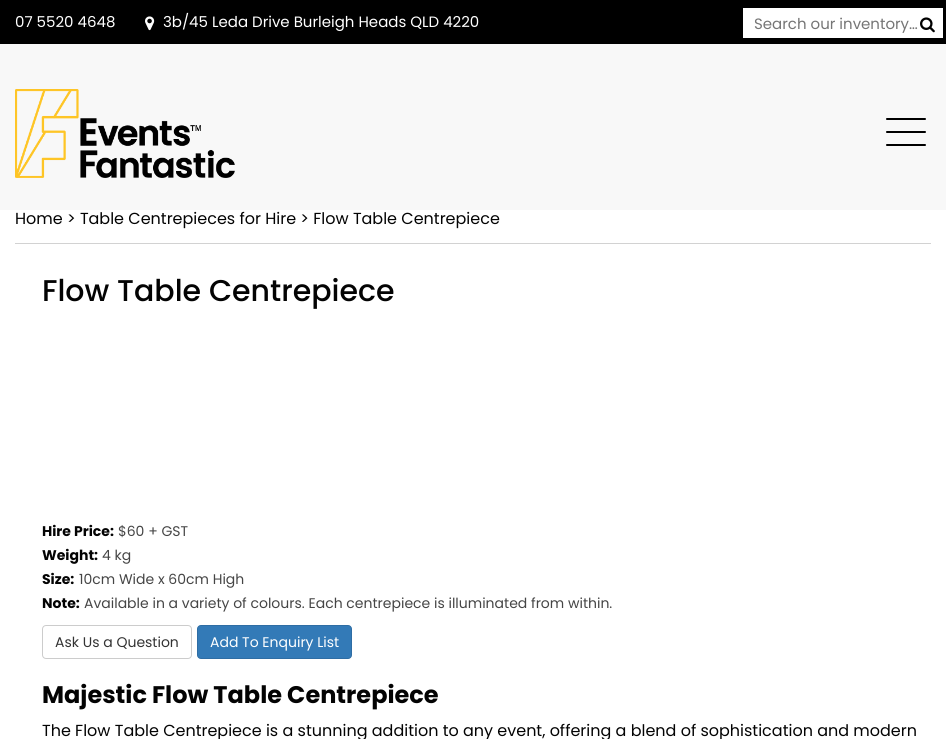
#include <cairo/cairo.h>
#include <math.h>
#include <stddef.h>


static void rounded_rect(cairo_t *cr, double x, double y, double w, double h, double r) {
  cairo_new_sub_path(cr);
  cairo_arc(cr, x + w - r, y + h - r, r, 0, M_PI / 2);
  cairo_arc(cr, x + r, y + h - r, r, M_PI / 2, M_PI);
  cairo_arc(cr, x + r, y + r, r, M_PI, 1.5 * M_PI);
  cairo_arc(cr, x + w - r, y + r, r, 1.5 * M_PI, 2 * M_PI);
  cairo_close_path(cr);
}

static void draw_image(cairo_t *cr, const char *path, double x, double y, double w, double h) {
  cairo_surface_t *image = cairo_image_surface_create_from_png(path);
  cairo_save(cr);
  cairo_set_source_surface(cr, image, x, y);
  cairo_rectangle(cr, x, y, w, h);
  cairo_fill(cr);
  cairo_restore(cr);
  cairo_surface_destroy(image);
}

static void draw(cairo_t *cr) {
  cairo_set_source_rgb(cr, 1, 1, 1);
  cairo_paint(cr);
  cairo_set_source_rgb(cr, 0, 0, 0);
  cairo_rectangle(cr, 0, 0, 946, 44);
  cairo_fill(cr);
  draw_image(cr, "images/1.png", 145, 16, 10, 15);
  cairo_set_source_rgb(cr, 1, 1, 1);
  cairo_rectangle(cr, 743, 8, 200, 30);
  cairo_fill(cr);
  draw_image(cr, "images/2.png", 920, 17, 15, 16);
  cairo_set_source_rgb(cr, 248 / 255.0, 248 / 255.0, 248 / 255.0);
  cairo_rectangle(cr, 0, 44, 946, 166);
  cairo_fill(cr);
  draw_image(cr, "images/3.png", 15, 89, 220, 89);
  cairo_set_source_rgb(cr, 0, 0, 0);
  rounded_rect(cr, 886, 118, 40, 2, 1);
  cairo_fill(cr);
  rounded_rect(cr, 886, 131, 40, 2, 1);
  cairo_fill(cr);
  rounded_rect(cr, 886, 144, 40, 2, 1);
  cairo_fill(cr);
  cairo_set_source_rgb(cr, 210 / 255.0, 210 / 255.0, 210 / 255.0);
  cairo_rectangle(cr, 15, 243, 916, 1);
  cairo_fill(cr);
  rounded_rect(cr, 42.5, 625.5, 149, 33, 3.5);
  cairo_set_source_rgb(cr, 204 / 255.0, 204 / 255.0, 204 / 255.0);
  cairo_set_line_width(cr, 1);
  cairo_stroke(cr);
  cairo_set_source_rgb(cr, 51 / 255.0, 122 / 255.0, 183 / 255.0);
  rounded_rect(cr, 197.5, 625.5, 154, 33, 3.5);
  cairo_fill_preserve(cr);
  cairo_set_source_rgb(cr, 46 / 255.0, 109 / 255.0, 164 / 255.0);
  cairo_stroke(cr);
  cairo_select_font_face(cr, "Poppins", CAIRO_FONT_SLANT_NORMAL, CAIRO_FONT_WEIGHT_NORMAL);
  cairo_set_font_size(cr, 15);
  cairo_set_source_rgb(cr, 1, 1, 1);
  cairo_move_to(cr, 15, 27);
  cairo_show_text(cr, "07 5520 4648");
  cairo_move_to(cr, 163, 27);
  cairo_show_text(cr, "3b/45 Leda Drive Burleigh Heads QLD 4220");
  cairo_set_source_rgb(cr, 117 / 255.0, 117 / 255.0, 117 / 255.0);
  cairo_move_to(cr, 754, 29);
  cairo_show_text(cr, "Search our inventory…");
  cairo_set_font_size(cr, 16);
  cairo_set_source_rgb(cr, 3 / 255.0, 3 / 255.0, 3 / 255.0);
  cairo_move_to(cr, 15, 224);
  cairo_show_text(cr, "Home > Table Centrepieces for Hire > Flow Table Centrepiece");
  cairo_select_font_face(cr, "Poppins Medium", CAIRO_FONT_SLANT_NORMAL, CAIRO_FONT_WEIGHT_NORMAL);
  cairo_set_font_size(cr, 30);
  cairo_move_to(cr, 42, 301);
  cairo_show_text(cr, "Flow Table Centrepiece");
  cairo_select_font_face(cr, "Poppins", CAIRO_FONT_SLANT_NORMAL, CAIRO_FONT_WEIGHT_BOLD);
  cairo_set_font_size(cr, 14);
  cairo_move_to(cr, 42, 536);
  cairo_show_text(cr, "Hire Price:");
  cairo_select_font_face(cr, "Poppins", CAIRO_FONT_SLANT_NORMAL, CAIRO_FONT_WEIGHT_NORMAL);
  cairo_set_source_rgb(cr, 69 / 255.0, 69 / 255.0, 69 / 255.0);
  cairo_move_to(cr, 118, 536);
  cairo_show_text(cr, "$60 + GST");
  cairo_select_font_face(cr, "Poppins", CAIRO_FONT_SLANT_NORMAL, CAIRO_FONT_WEIGHT_BOLD);
  cairo_set_source_rgb(cr, 3 / 255.0, 3 / 255.0, 3 / 255.0);
  cairo_move_to(cr, 42, 560);
  cairo_show_text(cr, "Weight:");
  cairo_select_font_face(cr, "Poppins", CAIRO_FONT_SLANT_NORMAL, CAIRO_FONT_WEIGHT_NORMAL);
  cairo_set_source_rgb(cr, 69 / 255.0, 69 / 255.0, 69 / 255.0);
  cairo_move_to(cr, 102, 560);
  cairo_show_text(cr, "4 kg");
  cairo_select_font_face(cr, "Poppins", CAIRO_FONT_SLANT_NORMAL, CAIRO_FONT_WEIGHT_BOLD);
  cairo_set_source_rgb(cr, 3 / 255.0, 3 / 255.0, 3 / 255.0);
  cairo_move_to(cr, 42, 584);
  cairo_show_text(cr, "Size:");
  cairo_select_font_face(cr, "Poppins", CAIRO_FONT_SLANT_NORMAL, CAIRO_FONT_WEIGHT_NORMAL);
  cairo_set_source_rgb(cr, 69 / 255.0, 69 / 255.0, 69 / 255.0);
  cairo_move_to(cr, 79, 584);
  cairo_show_text(cr, "10cm Wide x 60cm High");
  cairo_select_font_face(cr, "Poppins", CAIRO_FONT_SLANT_NORMAL, CAIRO_FONT_WEIGHT_BOLD);
  cairo_set_source_rgb(cr, 3 / 255.0, 3 / 255.0, 3 / 255.0);
  cairo_move_to(cr, 42, 608);
  cairo_show_text(cr, "Note:");
  cairo_select_font_face(cr, "Poppins", CAIRO_FONT_SLANT_NORMAL, CAIRO_FONT_WEIGHT_NORMAL);
  cairo_set_source_rgb(cr, 69 / 255.0, 69 / 255.0, 69 / 255.0);
  cairo_move_to(cr, 84, 608);
  cairo_show_text(cr, "Available in a variety of colours. Each centrepiece is illuminated from within.");
  cairo_set_source_rgb(cr, 51 / 255.0, 51 / 255.0, 51 / 255.0);
  cairo_move_to(cr, 55, 647);
  cairo_show_text(cr, "Ask Us a Question");
  cairo_set_source_rgb(cr, 1, 1, 1);
  cairo_move_to(cr, 210, 647);
  cairo_show_text(cr, "Add To Enquiry List");
  cairo_select_font_face(cr, "Poppins", CAIRO_FONT_SLANT_NORMAL, CAIRO_FONT_WEIGHT_BOLD);
  cairo_set_font_size(cr, 24);
  cairo_set_source_rgb(cr, 3 / 255.0, 3 / 255.0, 3 / 255.0);
  cairo_move_to(cr, 42, 703);
  cairo_show_text(cr, "Majestic Flow Table Centrepiece");
  cairo_select_font_face(cr, "Poppins", CAIRO_FONT_SLANT_NORMAL, CAIRO_FONT_WEIGHT_NORMAL);
  cairo_set_font_size(cr, 16);
  cairo_move_to(cr, 42, 736);
  cairo_show_text(cr, "The Flow Table Centrepiece is a stunning addition to any event, offering a blend of sophistication and modern");
}

int main(void) {
  cairo_surface_t *surface = cairo_image_surface_create(CAIRO_FORMAT_RGB24, 946, 739);
  cairo_t *cr = cairo_create(surface);
  cairo_font_options_t *options = cairo_font_options_create();
  cairo_font_options_set_hint_metrics(options, CAIRO_HINT_METRICS_OFF);
  cairo_font_options_set_hint_style(options, CAIRO_HINT_STYLE_NONE);
  cairo_set_font_options(cr, options);
  cairo_set_miter_limit(cr, 4);
  draw(cr);
  cairo_surface_write_to_png(surface, "out.png");
  cairo_font_options_destroy(options);
  cairo_destroy(cr);
  cairo_surface_destroy(surface);
  return 0;
}
